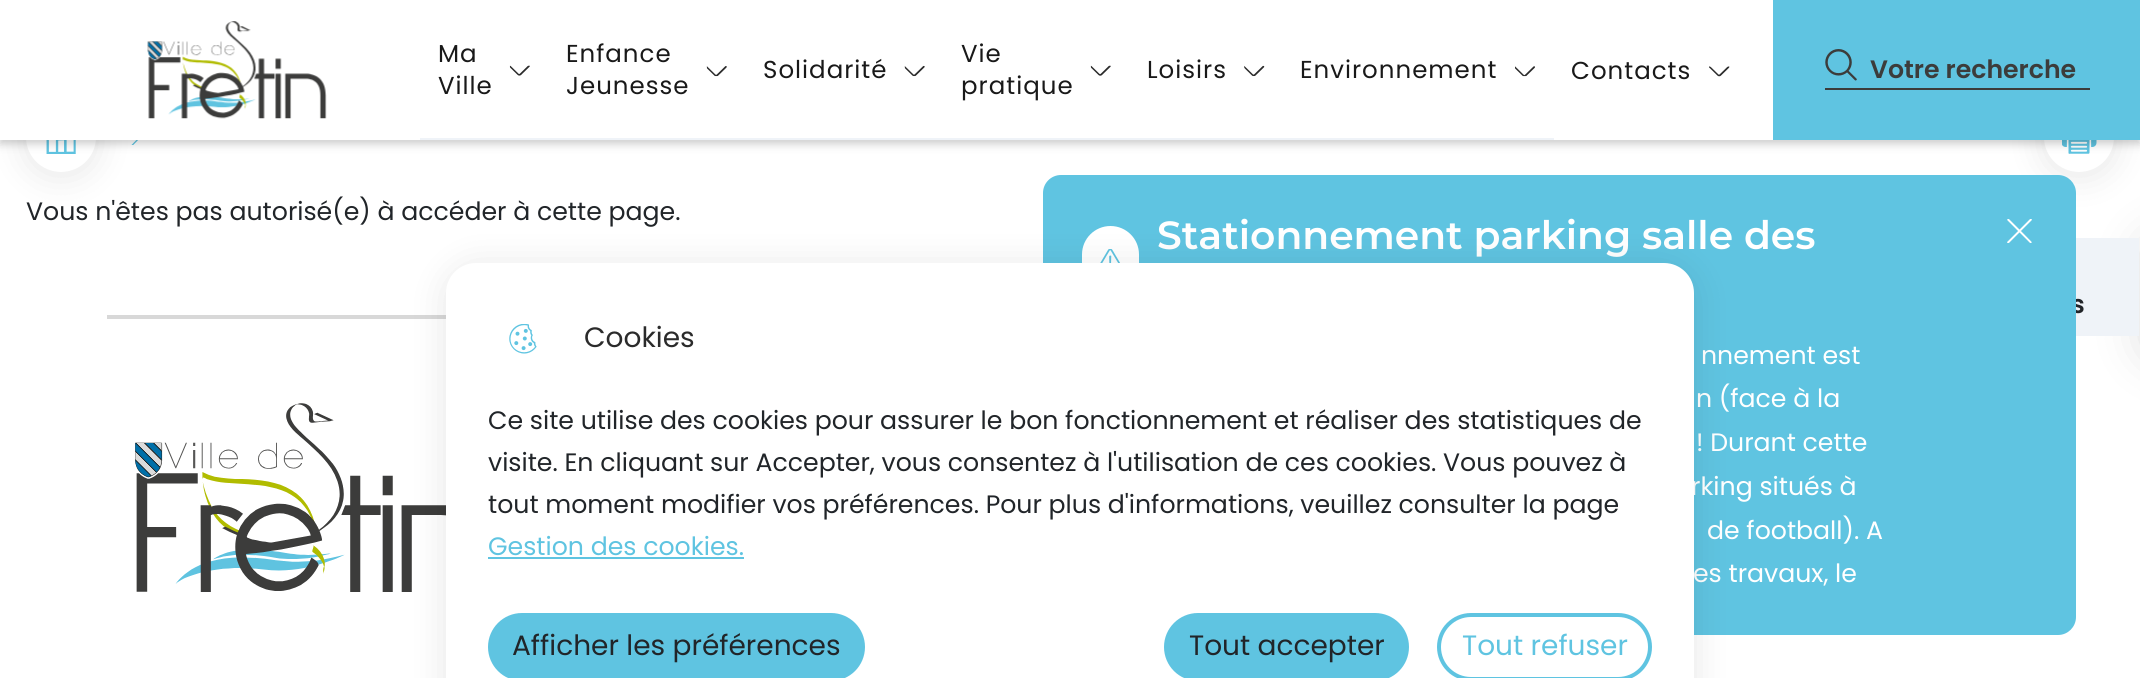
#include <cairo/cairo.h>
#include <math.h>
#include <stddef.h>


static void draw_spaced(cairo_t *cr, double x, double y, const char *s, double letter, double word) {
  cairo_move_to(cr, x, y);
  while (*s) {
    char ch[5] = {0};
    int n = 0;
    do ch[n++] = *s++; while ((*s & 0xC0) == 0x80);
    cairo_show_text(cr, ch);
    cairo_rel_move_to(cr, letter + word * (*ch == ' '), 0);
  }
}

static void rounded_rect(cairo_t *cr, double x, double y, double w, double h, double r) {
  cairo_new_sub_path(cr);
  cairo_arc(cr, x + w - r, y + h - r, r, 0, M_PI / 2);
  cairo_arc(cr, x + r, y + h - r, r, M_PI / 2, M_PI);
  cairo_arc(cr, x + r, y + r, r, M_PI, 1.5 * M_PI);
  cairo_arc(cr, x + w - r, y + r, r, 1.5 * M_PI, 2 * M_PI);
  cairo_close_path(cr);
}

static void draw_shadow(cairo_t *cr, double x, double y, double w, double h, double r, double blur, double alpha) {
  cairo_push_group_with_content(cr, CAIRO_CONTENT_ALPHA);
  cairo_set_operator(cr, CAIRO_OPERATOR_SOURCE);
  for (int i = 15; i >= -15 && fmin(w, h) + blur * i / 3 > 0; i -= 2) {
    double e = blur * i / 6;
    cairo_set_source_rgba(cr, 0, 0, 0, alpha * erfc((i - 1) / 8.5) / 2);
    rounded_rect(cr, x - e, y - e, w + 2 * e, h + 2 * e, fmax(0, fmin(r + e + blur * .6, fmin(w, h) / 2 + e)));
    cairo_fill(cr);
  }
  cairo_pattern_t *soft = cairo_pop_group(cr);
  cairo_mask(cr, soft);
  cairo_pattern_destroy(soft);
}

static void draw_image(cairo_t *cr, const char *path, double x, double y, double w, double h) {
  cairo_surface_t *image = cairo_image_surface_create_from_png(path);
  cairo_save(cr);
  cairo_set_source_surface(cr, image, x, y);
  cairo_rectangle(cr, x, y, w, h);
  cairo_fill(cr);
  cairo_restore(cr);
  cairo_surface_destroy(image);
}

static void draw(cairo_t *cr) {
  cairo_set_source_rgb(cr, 1, 1, 1);
  cairo_paint(cr);
  draw_image(cr, "images/11.png", 131, 140, 7, 5);
  cairo_set_source_rgb(cr, 0, 0, 0);
  draw_shadow(cr, 26, 105, 70, 70, 35, 17.5, 0.1);
  cairo_set_source_rgb(cr, 1, 1, 1);
  cairo_arc(cr, 61, 137, 35, 0, 2 * M_PI);
  cairo_fill(cr);
  draw_image(cr, "images/10.png", 46, 140, 30, 14);
  cairo_set_source_rgb(cr, 0, 0, 0);
  draw_shadow(cr, 2044, 105, 70, 70, 35, 17.5, 0.1);
  cairo_set_source_rgb(cr, 1, 1, 1);
  cairo_arc(cr, 2079, 137, 35, 0, 2 * M_PI);
  cairo_fill(cr);
  draw_image(cr, "images/12.png", 2062, 140, 35, 14);
  cairo_set_source_rgb(cr, 0, 0, 0);
  draw_shadow(cr, 0, 4, 2140, 140, 0, 4.5, 0.2);
  cairo_set_source_rgb(cr, 1, 1, 1);
  cairo_rectangle(cr, 0, 0, 1773, 140);
  cairo_fill(cr);
  draw_image(cr, "images/1.png", 147, 21, 180, 98);
  cairo_set_source_rgb(cr, 239 / 255.0, 243 / 255.0, 248 / 255.0);
  cairo_rectangle(cr, 420, 138, 1134, 2);
  cairo_fill(cr);
  draw_image(cr, "images/2.png", 509, 65, 21, 11);
  draw_image(cr, "images/3.png", 706, 66, 21, 11);
  draw_image(cr, "images/4.png", 904, 65, 21, 12);
  draw_image(cr, "images/5.png", 1090, 65, 21, 11);
  draw_image(cr, "images/6.png", 1244, 65, 21, 12);
  draw_image(cr, "images/7.png", 1515, 66, 20, 11);
  draw_image(cr, "images/8.png", 1709, 66, 21, 11);
  cairo_set_source_rgb(cr, 95 / 255.0, 196 / 255.0, 225 / 255.0);
  cairo_rectangle(cr, 1773, 0, 367, 140);
  cairo_fill(cr);
  draw_image(cr, "images/9.png", 1825, 49, 32, 32);
  cairo_set_source_rgb(cr, 60 / 255.0, 60 / 255.0, 59 / 255.0);
  cairo_rectangle(cr, 1825, 88, 265, 2);
  cairo_fill(cr);
  cairo_set_source_rgb(cr, 17 / 255.0, 17 / 255.0, 17 / 255.0);
  draw_shadow(cr, 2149, 242, 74, 112, 9, 24.5, 0.2);
  cairo_set_source_rgb(cr, 239 / 255.0, 243 / 255.0, 248 / 255.0);
  cairo_rectangle(cr, 2076, 238, 63, 98);
  cairo_fill(cr);
  cairo_set_source_rgb(cr, 216 / 255.0, 216 / 255.0, 216 / 255.0);
  cairo_rectangle(cr, 107, 315, 339, 4);
  cairo_fill(cr);
  draw_image(cr, "images/13.png", 135, 403, 311, 189);
  cairo_select_font_face(cr, "Poppins", CAIRO_FONT_SLANT_NORMAL, CAIRO_FONT_WEIGHT_NORMAL);
  cairo_set_font_size(cr, 24.5);
  cairo_set_source_rgb(cr, 25 / 255.0, 25 / 255.0, 25 / 255.0);
  draw_spaced(cr, 438, 62, "Ma", 1, 0);
  draw_spaced(cr, 438, 94, "Ville", 1, 0);
  draw_spaced(cr, 566, 62, "Enfance", 1, 0);
  draw_spaced(cr, 566, 94, "Jeunesse", 1, 0);
  draw_spaced(cr, 763, 78, "Solidarité", 1, 0);
  draw_spaced(cr, 961, 62, "Vie", 1, 0);
  draw_spaced(cr, 961, 94, "pratique", 1, 0);
  draw_spaced(cr, 1147, 78, "Loisirs", 1, 0);
  draw_spaced(cr, 1300, 78, "Environnement", 1, 0);
  draw_spaced(cr, 1571, 79, "Contacts", 1, 0);
  cairo_select_font_face(cr, "Poppins SemiBold", CAIRO_FONT_SLANT_NORMAL, CAIRO_FONT_WEIGHT_NORMAL);
  cairo_set_font_size(cr, 25.2);
  cairo_set_source_rgb(cr, 60 / 255.0, 60 / 255.0, 59 / 255.0);
  cairo_move_to(cr, 1870, 78);
  cairo_show_text(cr, "Votre recherche");
  cairo_select_font_face(cr, "Poppins", CAIRO_FONT_SLANT_NORMAL, CAIRO_FONT_WEIGHT_NORMAL);
  cairo_set_source_rgb(cr, 33 / 255.0, 37 / 255.0, 41 / 255.0);
  cairo_move_to(cr, 26, 220);
  cairo_show_text(cr, "Vous n'êtes pas autorisé(e) à accéder à cette page.");
  cairo_select_font_face(cr, "Poppins SemiBold", CAIRO_FONT_SLANT_NORMAL, CAIRO_FONT_WEIGHT_NORMAL);
  cairo_move_to(cr, 2071, 313);
  cairo_show_text(cr, "s");
  cairo_set_source_rgb(cr, 95 / 255.0, 196 / 255.0, 225 / 255.0);
  rounded_rect(cr, 1045, 177, 1029, 456, 16);
  cairo_fill_preserve(cr);
  cairo_set_line_width(cr, 4);
  cairo_stroke(cr);
  cairo_set_source_rgb(cr, 1, 1, 1);
  rounded_rect(cr, 1082, 226, 57, 70, 28.5);
  cairo_fill(cr);
  draw_image(cr, "images/14.png", 1100, 249, 20, 14);
  cairo_select_font_face(cr, "Montserrat SemiBold", CAIRO_FONT_SLANT_NORMAL, CAIRO_FONT_WEIGHT_NORMAL);
  cairo_set_font_size(cr, 39.25);
  cairo_move_to(cr, 1157, 249);
  cairo_show_text(cr, "Stationnement parking salle des");
  cairo_select_font_face(cr, "Poppins", CAIRO_FONT_SLANT_NORMAL, CAIRO_FONT_WEIGHT_NORMAL);
  cairo_set_font_size(cr, 25.2);
  cairo_move_to(cr, 1701, 364);
  cairo_show_text(cr, "nnement est");
  cairo_move_to(cr, 1696, 407);
  cairo_show_text(cr, "n (face à la");
  cairo_move_to(cr, 1696, 451);
  cairo_show_text(cr, "! Durant cette");
  cairo_move_to(cr, 1691, 495);
  cairo_show_text(cr, "rking situés à");
  cairo_move_to(cr, 1707, 539);
  cairo_show_text(cr, "de football).");
  cairo_move_to(cr, 1866, 539);
  cairo_show_text(cr, "A");
  cairo_move_to(cr, 1693, 582);
  cairo_show_text(cr, "es travaux, le");
  draw_image(cr, "images/15.png", 2007, 219, 25, 24);
  cairo_set_source_rgb(cr, 0, 0, 0);
  draw_shadow(cr, 446, 266, 1248, 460, 30, 17.5, 0.1);
  cairo_set_source_rgb(cr, 1, 1, 1);
  rounded_rect(cr, 446, 263, 1248, 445, 30);
  cairo_fill(cr);
  draw_image(cr, "images/16.png", 509, 324, 28, 30);
  cairo_set_font_size(cr, 28);
  cairo_set_source_rgb(cr, 43 / 255.0, 43 / 255.0, 43 / 255.0);
  cairo_move_to(cr, 584, 347);
  cairo_show_text(cr, "Cookies");
  cairo_set_font_size(cr, 25.2);
  cairo_set_source_rgb(cr, 33 / 255.0, 37 / 255.0, 41 / 255.0);
  cairo_move_to(cr, 488, 429);
  cairo_show_text(cr, "Ce site utilise des cookies pour assurer le bon fonctionnement et réaliser des statistiques de");
  cairo_move_to(cr, 488, 471);
  cairo_show_text(cr, "visite. En cliquant sur Accepter, vous consentez à l'utilisation de ces cookies. Vous pouvez à");
  cairo_move_to(cr, 488, 513);
  cairo_show_text(cr, "tout moment modifier vos préférences. Pour plus d'informations, veuillez consulter la page");
  cairo_set_source_rgb(cr, 95 / 255.0, 196 / 255.0, 225 / 255.0);
  cairo_move_to(cr, 488, 555);
  cairo_show_text(cr, "Gestion des cookies.");
  cairo_rectangle(cr, 488, 557, 256, 2);
  cairo_fill(cr);
  rounded_rect(cr, 490, 615, 373, 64, 32);
  cairo_fill_preserve(cr);
  cairo_stroke(cr);
  cairo_set_font_size(cr, 28);
  cairo_set_source_rgb(cr, 33 / 255.0, 37 / 255.0, 41 / 255.0);
  cairo_move_to(cr, 512, 655);
  cairo_show_text(cr, "Afficher les préférences");
  cairo_set_source_rgb(cr, 95 / 255.0, 196 / 255.0, 225 / 255.0);
  rounded_rect(cr, 1166, 615, 241, 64, 32);
  cairo_fill_preserve(cr);
  cairo_stroke(cr);
  cairo_set_source_rgb(cr, 33 / 255.0, 37 / 255.0, 41 / 255.0);
  cairo_move_to(cr, 1189, 655);
  cairo_show_text(cr, "Tout accepter");
  rounded_rect(cr, 1439, 615, 211, 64, 32);
  cairo_set_source_rgb(cr, 95 / 255.0, 196 / 255.0, 225 / 255.0);
  cairo_stroke(cr);
  cairo_move_to(cr, 1462, 655);
  cairo_show_text(cr, "Tout refuser");
}

int main(void) {
  cairo_surface_t *surface = cairo_image_surface_create(CAIRO_FORMAT_RGB24, 2140, 678);
  cairo_t *cr = cairo_create(surface);
  cairo_font_options_t *options = cairo_font_options_create();
  cairo_font_options_set_hint_metrics(options, CAIRO_HINT_METRICS_OFF);
  cairo_font_options_set_hint_style(options, CAIRO_HINT_STYLE_NONE);
  cairo_set_font_options(cr, options);
  cairo_set_miter_limit(cr, 4);
  draw(cr);
  cairo_surface_write_to_png(surface, "out.png");
  cairo_font_options_destroy(options);
  cairo_destroy(cr);
  cairo_surface_destroy(surface);
  return 0;
}
